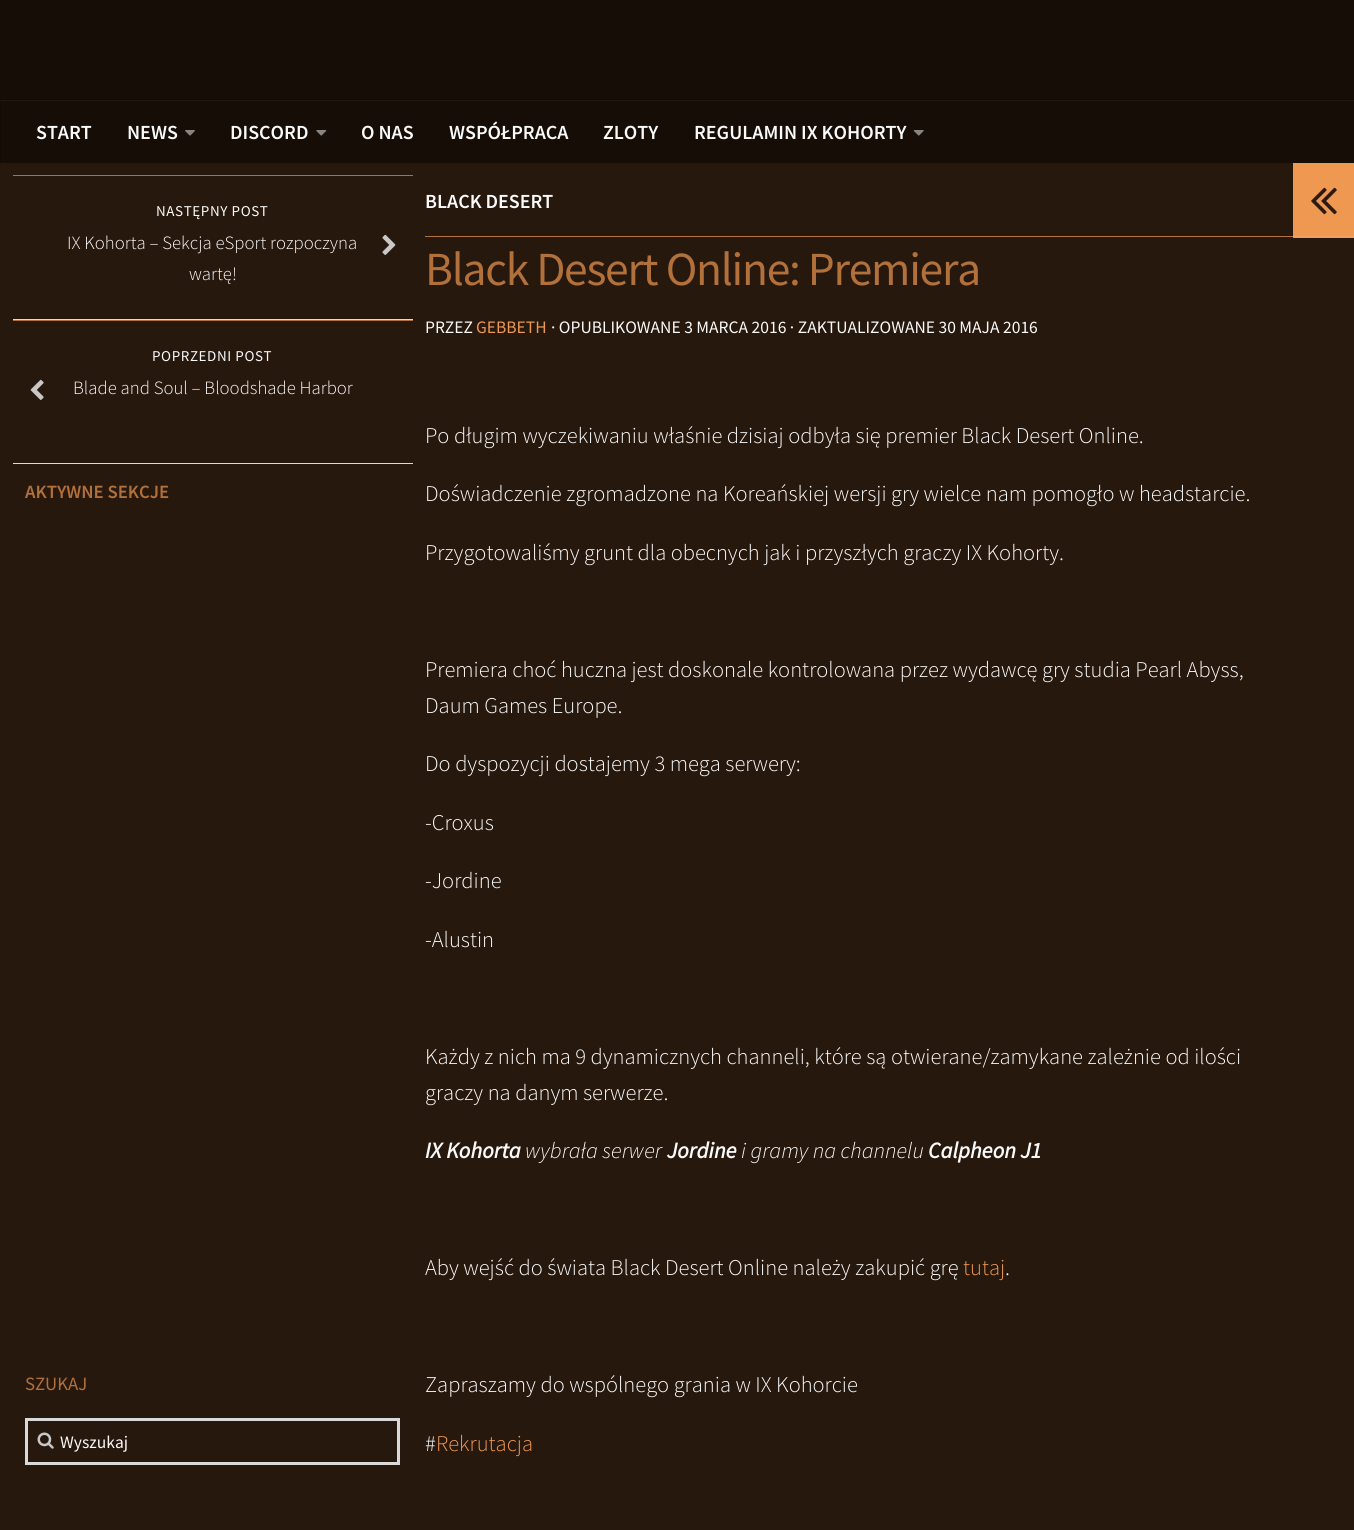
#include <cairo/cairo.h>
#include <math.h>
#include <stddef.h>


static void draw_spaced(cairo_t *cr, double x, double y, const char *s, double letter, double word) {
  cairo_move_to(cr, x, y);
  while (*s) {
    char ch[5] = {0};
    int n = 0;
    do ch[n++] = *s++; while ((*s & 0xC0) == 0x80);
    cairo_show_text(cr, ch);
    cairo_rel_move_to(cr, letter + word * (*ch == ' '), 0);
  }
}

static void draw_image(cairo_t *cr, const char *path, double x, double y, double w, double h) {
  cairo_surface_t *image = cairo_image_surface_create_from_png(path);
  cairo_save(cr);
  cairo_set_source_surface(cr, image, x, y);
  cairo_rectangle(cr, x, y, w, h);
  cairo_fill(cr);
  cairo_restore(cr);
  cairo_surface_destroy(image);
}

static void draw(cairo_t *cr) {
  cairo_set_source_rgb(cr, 21 / 255.0, 13 / 255.0, 6 / 255.0);
  cairo_paint(cr);
  cairo_set_source_rgb(cr, 32 / 255.0, 25 / 255.0, 18 / 255.0);
  cairo_rectangle(cr, 0, 100, 1354, 1);
  cairo_fill(cr);
  cairo_set_source_rgb(cr, 17 / 255.0, 10 / 255.0, 5 / 255.0);
  cairo_rectangle(cr, 0, 99, 1354, 1);
  cairo_fill(cr);
  cairo_rectangle(cr, 0, 100, 1, 63);
  cairo_fill(cr);
  cairo_set_source_rgb(cr, 29 / 255.0, 22 / 255.0, 17 / 255.0);
  cairo_rectangle(cr, 0, 100, 1, 1);
  cairo_fill(cr);
  draw_image(cr, "images/1.png", 185, 130, 10, 6);
  draw_image(cr, "images/2.png", 316, 130, 11, 6);
  draw_image(cr, "images/3.png", 913, 130, 11, 6);
  cairo_set_source_rgb(cr, 39 / 255.0, 24 / 255.0, 14 / 255.0);
  cairo_rectangle(cr, 0, 163, 1354, 1367);
  cairo_fill(cr);
  cairo_set_source_rgb(cr, 178 / 255.0, 112 / 255.0, 58 / 255.0);
  cairo_rectangle(cr, 13, 175, 400, 1);
  cairo_fill(cr);
  cairo_set_source_rgb(cr, 217 / 255.0, 217 / 255.0, 217 / 255.0);
  cairo_rectangle(cr, 13, 319, 400, 1);
  cairo_fill(cr);
  draw_image(cr, "images/4.png", 382, 234, 14, 21);
  cairo_set_source_rgb(cr, 178 / 255.0, 112 / 255.0, 58 / 255.0);
  cairo_rectangle(cr, 13, 320, 400, 1);
  cairo_fill(cr);
  cairo_set_source_rgb(cr, 217 / 255.0, 217 / 255.0, 217 / 255.0);
  cairo_rectangle(cr, 13, 463, 400, 1);
  cairo_fill(cr);
  draw_image(cr, "images/5.png", 30, 379, 14, 21);
  cairo_rectangle(cr, 26.5, 1419.5, 372, 44);
  cairo_set_line_width(cr, 3);
  cairo_stroke(cr);
  draw_image(cr, "images/6.png", 37, 1432, 17, 17);
  cairo_set_source_rgb(cr, 178 / 255.0, 112 / 255.0, 58 / 255.0);
  cairo_rectangle(cr, 425, 236, 868, 1);
  cairo_fill(cr);
  cairo_set_source_rgb(cr, 238 / 255.0, 152 / 255.0, 81 / 255.0);
  cairo_rectangle(cr, 1293, 163, 61, 75);
  cairo_fill(cr);
  cairo_set_source_rgb(cr, 239 / 255.0, 162 / 255.0, 98 / 255.0);
  cairo_rectangle(cr, 1293, 236, 61, 1);
  cairo_fill(cr);
  draw_image(cr, "images/7.png", 1311, 187, 26, 28);
  cairo_select_font_face(cr, "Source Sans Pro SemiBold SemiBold", CAIRO_FONT_SLANT_NORMAL, CAIRO_FONT_WEIGHT_NORMAL);
  cairo_set_font_size(cr, 20);
  cairo_set_source_rgb(cr, 250 / 255.0, 250 / 255.0, 250 / 255.0);
  cairo_move_to(cr, 36, 139);
  cairo_show_text(cr, "START");
  cairo_move_to(cr, 127, 139);
  cairo_show_text(cr, "NEWS");
  cairo_move_to(cr, 230, 139);
  cairo_show_text(cr, "DISCORD");
  cairo_move_to(cr, 361, 139);
  cairo_show_text(cr, "O NAS");
  cairo_move_to(cr, 449, 139);
  cairo_show_text(cr, "WSPÓŁPRACA");
  cairo_move_to(cr, 603, 139);
  cairo_show_text(cr, "ZLOTY");
  cairo_move_to(cr, 694, 139);
  cairo_show_text(cr, "REGULAMIN IX KOHORTY");
  cairo_select_font_face(cr, "Source Sans Pro", CAIRO_FONT_SLANT_NORMAL, CAIRO_FONT_WEIGHT_NORMAL);
  cairo_set_font_size(cr, 15);
  draw_spaced(cr, 156, 216, "NASTĘPNY POST", 0.6, 0);
  cairo_select_font_face(cr, "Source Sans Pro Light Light", CAIRO_FONT_SLANT_NORMAL, CAIRO_FONT_WEIGHT_NORMAL);
  cairo_set_font_size(cr, 18.75);
  cairo_move_to(cr, 67, 249);
  cairo_show_text(cr, "IX Kohorta – Sekcja eSport rozpoczyna");
  cairo_move_to(cr, 189, 280);
  cairo_show_text(cr, "wartę!");
  cairo_select_font_face(cr, "Source Sans Pro", CAIRO_FONT_SLANT_NORMAL, CAIRO_FONT_WEIGHT_NORMAL);
  cairo_set_font_size(cr, 15);
  draw_spaced(cr, 152, 361, "POPRZEDNI POST", 0.6, 0);
  cairo_select_font_face(cr, "Source Sans Pro Light Light", CAIRO_FONT_SLANT_NORMAL, CAIRO_FONT_WEIGHT_NORMAL);
  cairo_set_font_size(cr, 18.75);
  cairo_move_to(cr, 73, 394);
  cairo_show_text(cr, "Blade and Soul – Bloodshade Harbor");
  cairo_select_font_face(cr, "Source Sans Pro SemiBold SemiBold", CAIRO_FONT_SLANT_NORMAL, CAIRO_FONT_WEIGHT_NORMAL);
  cairo_set_source_rgb(cr, 178 / 255.0, 112 / 255.0, 58 / 255.0);
  cairo_move_to(cr, 25, 498);
  cairo_show_text(cr, "AKTYWNE SEKCJE");
  cairo_select_font_face(cr, "Source Sans Pro", CAIRO_FONT_SLANT_NORMAL, CAIRO_FONT_WEIGHT_NORMAL);
  cairo_move_to(cr, 25, 1390);
  cairo_show_text(cr, "SZUKAJ");
  cairo_set_font_size(cr, 17.5);
  cairo_set_source_rgb(cr, 250 / 255.0, 250 / 255.0, 250 / 255.0);
  cairo_move_to(cr, 60, 1448);
  cairo_show_text(cr, "Wyszukaj");
  cairo_select_font_face(cr, "Source Sans Pro SemiBold SemiBold", CAIRO_FONT_SLANT_NORMAL, CAIRO_FONT_WEIGHT_NORMAL);
  cairo_set_font_size(cr, 20);
  cairo_move_to(cr, 425, 208);
  cairo_show_text(cr, "BLACK DESERT");
  cairo_select_font_face(cr, "Source Sans Pro", CAIRO_FONT_SLANT_NORMAL, CAIRO_FONT_WEIGHT_NORMAL);
  cairo_set_font_size(cr, 47.5);
  cairo_set_source_rgb(cr, 178 / 255.0, 112 / 255.0, 58 / 255.0);
  draw_spaced(cr, 425, 285, "Black Desert Online: Premiera", -1.25, 0);
  cairo_set_font_size(cr, 17.5);
  cairo_set_source_rgb(cr, 250 / 255.0, 250 / 255.0, 250 / 255.0);
  cairo_move_to(cr, 425, 333);
  cairo_show_text(cr, "PRZEZ");
  cairo_set_source_rgb(cr, 238 / 255.0, 152 / 255.0, 81 / 255.0);
  cairo_move_to(cr, 476, 333);
  cairo_show_text(cr, "GEBBETH");
  cairo_set_source_rgb(cr, 250 / 255.0, 250 / 255.0, 250 / 255.0);
  cairo_move_to(cr, 551, 333);
  cairo_show_text(cr, "· OPUBLIKOWANE 3 MARCA 2016 · ZAKTUALIZOWANE 30 MAJA 2016");
  cairo_select_font_face(cr, "Source Sans Pro Light Light", CAIRO_FONT_SLANT_NORMAL, CAIRO_FONT_WEIGHT_NORMAL);
  cairo_set_font_size(cr, 22.5);
  cairo_move_to(cr, 425, 443);
  cairo_show_text(cr, "Po długim wyczekiwaniu właśnie dzisiaj odbyła się premier Black Desert Online.");
  cairo_move_to(cr, 425, 501);
  cairo_show_text(cr, "Doświadczenie zgromadzone na Koreańskiej wersji gry wielce nam pomogło w headstarcie.");
  cairo_move_to(cr, 425, 560);
  cairo_show_text(cr, "Przygotowaliśmy grunt dla obecnych jak i przyszłych graczy IX Kohorty.");
  cairo_move_to(cr, 425, 677);
  cairo_show_text(cr, "Premiera choć huczna jest doskonale kontrolowana przez wydawcę gry studia Pearl Abyss,");
  cairo_move_to(cr, 425, 713);
  cairo_show_text(cr, "Daum Games Europe.");
  cairo_move_to(cr, 425, 771);
  cairo_show_text(cr, "Do dyspozycji dostajemy 3 mega serwery:");
  cairo_move_to(cr, 425, 830);
  cairo_show_text(cr, "-Croxus");
  cairo_move_to(cr, 425, 888);
  cairo_show_text(cr, "-Jordine");
  cairo_move_to(cr, 425, 947);
  cairo_show_text(cr, "-Alustin");
  cairo_move_to(cr, 425, 1064);
  cairo_show_text(cr, "Każdy z nich ma 9 dynamicznych channeli, które są otwierane/zamykane zależnie od ilości");
  cairo_move_to(cr, 425, 1100);
  cairo_show_text(cr, "graczy na danym serwerze.");
  cairo_select_font_face(cr, "Source Sans Pro", CAIRO_FONT_SLANT_ITALIC, CAIRO_FONT_WEIGHT_BOLD);
  cairo_move_to(cr, 425, 1158);
  cairo_show_text(cr, "IX Kohorta");
  cairo_select_font_face(cr, "Source Sans Pro Light Light", CAIRO_FONT_SLANT_ITALIC, CAIRO_FONT_WEIGHT_NORMAL);
  cairo_move_to(cr, 525, 1158);
  cairo_show_text(cr, "wybrała serwer");
  cairo_select_font_face(cr, "Source Sans Pro", CAIRO_FONT_SLANT_ITALIC, CAIRO_FONT_WEIGHT_BOLD);
  cairo_move_to(cr, 667, 1158);
  cairo_show_text(cr, "Jordine");
  cairo_select_font_face(cr, "Source Sans Pro Light Light", CAIRO_FONT_SLANT_ITALIC, CAIRO_FONT_WEIGHT_NORMAL);
  cairo_move_to(cr, 741, 1158);
  cairo_show_text(cr, "i gramy na channelu");
  cairo_select_font_face(cr, "Source Sans Pro", CAIRO_FONT_SLANT_ITALIC, CAIRO_FONT_WEIGHT_BOLD);
  cairo_move_to(cr, 928, 1158);
  cairo_show_text(cr, "Calpheon J1");
  cairo_select_font_face(cr, "Source Sans Pro Light Light", CAIRO_FONT_SLANT_NORMAL, CAIRO_FONT_WEIGHT_NORMAL);
  cairo_move_to(cr, 425, 1275);
  cairo_show_text(cr, "Aby wejść do świata Black Desert Online należy zakupić grę");
  cairo_set_source_rgb(cr, 238 / 255.0, 152 / 255.0, 81 / 255.0);
  cairo_move_to(cr, 963, 1275);
  cairo_show_text(cr, "tutaj");
  cairo_set_source_rgb(cr, 250 / 255.0, 250 / 255.0, 250 / 255.0);
  cairo_move_to(cr, 1005, 1275);
  cairo_show_text(cr, ".");
  cairo_move_to(cr, 425, 1392);
  cairo_show_text(cr, "Zapraszamy do wspólnego grania w IX Kohorcie");
  cairo_move_to(cr, 425, 1451);
  cairo_show_text(cr, "#");
  cairo_set_source_rgb(cr, 238 / 255.0, 152 / 255.0, 81 / 255.0);
  cairo_move_to(cr, 436, 1451);
  cairo_show_text(cr, "Rekrutacja");
}

int main(void) {
  cairo_surface_t *surface = cairo_image_surface_create(CAIRO_FORMAT_RGB24, 1354, 1530);
  cairo_t *cr = cairo_create(surface);
  cairo_font_options_t *options = cairo_font_options_create();
  cairo_font_options_set_hint_metrics(options, CAIRO_HINT_METRICS_OFF);
  cairo_font_options_set_hint_style(options, CAIRO_HINT_STYLE_NONE);
  cairo_set_font_options(cr, options);
  cairo_set_miter_limit(cr, 4);
  draw(cr);
  cairo_surface_write_to_png(surface, "out.png");
  cairo_font_options_destroy(options);
  cairo_destroy(cr);
  cairo_surface_destroy(surface);
  return 0;
}
